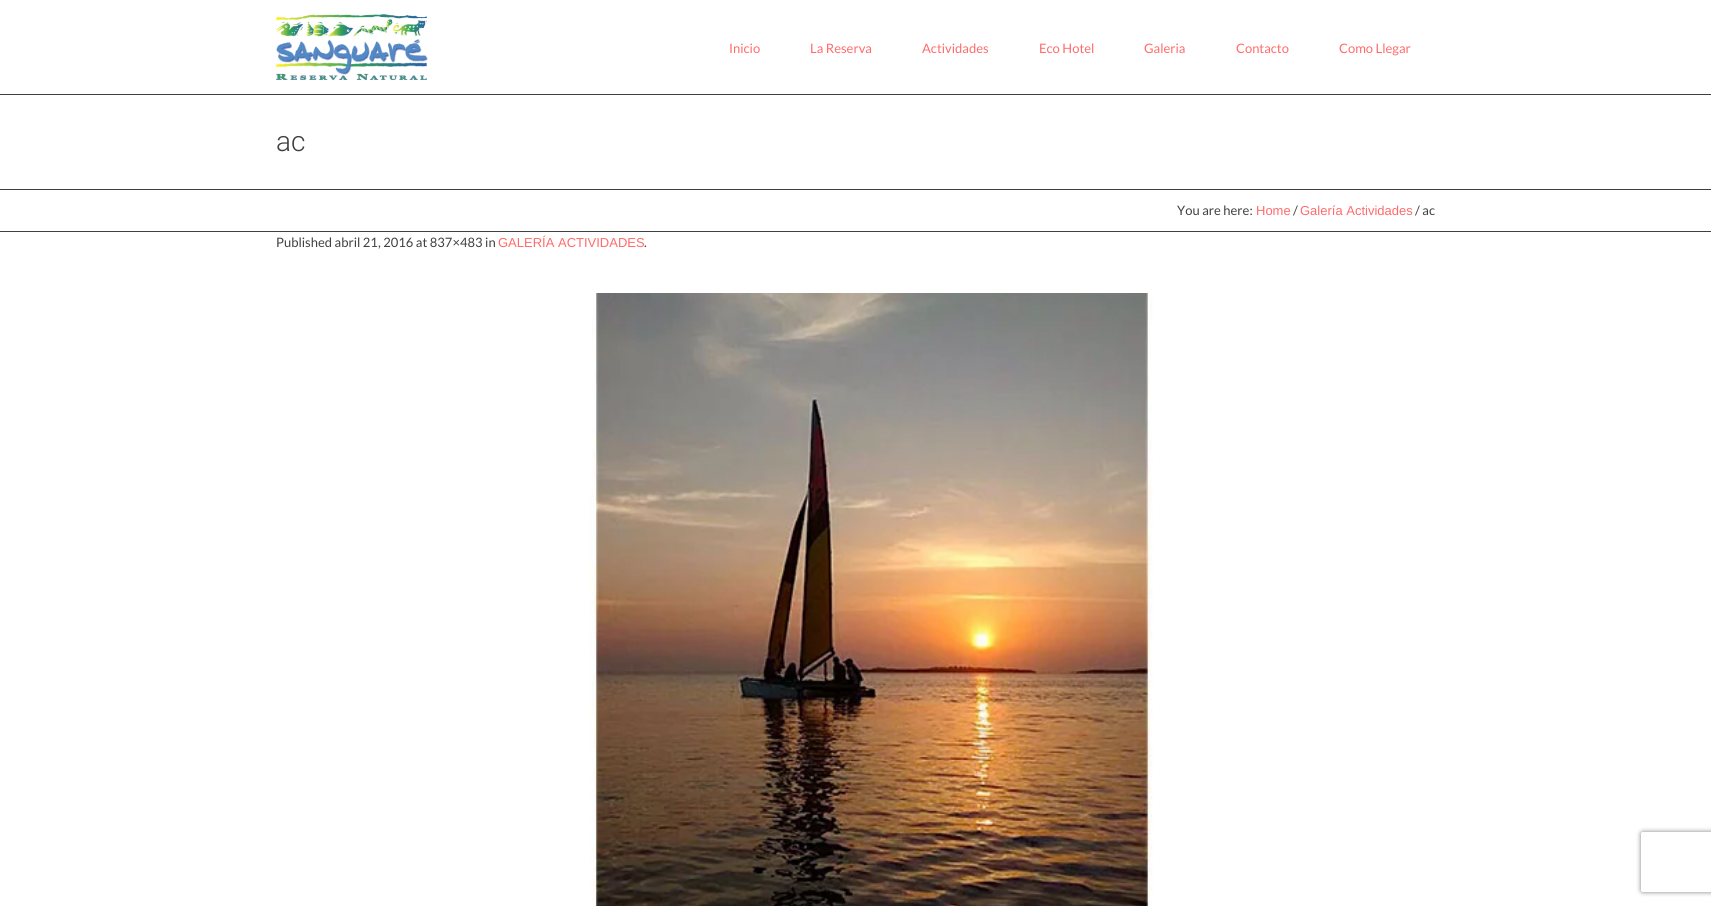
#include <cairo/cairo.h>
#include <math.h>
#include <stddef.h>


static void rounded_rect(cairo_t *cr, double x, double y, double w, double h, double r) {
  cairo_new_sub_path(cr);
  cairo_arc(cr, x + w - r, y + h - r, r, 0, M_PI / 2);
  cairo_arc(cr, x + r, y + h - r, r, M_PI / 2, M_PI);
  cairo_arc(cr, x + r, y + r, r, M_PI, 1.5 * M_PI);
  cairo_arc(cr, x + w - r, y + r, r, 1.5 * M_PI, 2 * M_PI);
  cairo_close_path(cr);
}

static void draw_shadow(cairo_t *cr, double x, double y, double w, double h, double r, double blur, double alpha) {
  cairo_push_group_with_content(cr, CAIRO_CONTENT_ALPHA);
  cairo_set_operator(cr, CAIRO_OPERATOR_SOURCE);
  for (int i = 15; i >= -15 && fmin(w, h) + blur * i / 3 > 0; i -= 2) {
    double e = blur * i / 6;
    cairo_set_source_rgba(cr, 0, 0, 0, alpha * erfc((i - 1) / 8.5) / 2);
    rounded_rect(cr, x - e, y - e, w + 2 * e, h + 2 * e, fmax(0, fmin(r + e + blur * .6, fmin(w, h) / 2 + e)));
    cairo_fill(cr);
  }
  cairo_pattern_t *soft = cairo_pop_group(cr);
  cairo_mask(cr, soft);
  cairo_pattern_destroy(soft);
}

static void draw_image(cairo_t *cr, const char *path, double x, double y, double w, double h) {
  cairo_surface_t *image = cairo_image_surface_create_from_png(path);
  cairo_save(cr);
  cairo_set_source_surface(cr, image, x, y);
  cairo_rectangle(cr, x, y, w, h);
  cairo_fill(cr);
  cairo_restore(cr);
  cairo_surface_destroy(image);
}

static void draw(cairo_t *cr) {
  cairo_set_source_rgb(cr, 1, 1, 1);
  cairo_paint(cr);
  cairo_set_source_rgb(cr, 64 / 255.0, 64 / 255.0, 64 / 255.0);
  cairo_rectangle(cr, 0, 94, 1711, 1);
  cairo_fill(cr);
  draw_image(cr, "images/1.png", 275, 14, 153, 66);
  cairo_rectangle(cr, 0, 189, 1711, 1);
  cairo_fill(cr);
  cairo_rectangle(cr, 0, 231, 1711, 1);
  cairo_fill(cr);
  draw_image(cr, "images/2.png", 589, 293, 564, 613);
  cairo_save(cr);
  cairo_set_fill_rule(cr, CAIRO_FILL_RULE_EVEN_ODD);
  cairo_new_path(cr);
  cairo_move_to(cr, 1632, 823);
  cairo_line_to(cr, 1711, 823);
  cairo_line_to(cr, 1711, 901);
  cairo_line_to(cr, 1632, 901);
  cairo_close_path(cr);
  cairo_move_to(cr, 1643, 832);
  cairo_line_to(cr, 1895, 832);
  cairo_curve_to(cr, 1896, 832, 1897, 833, 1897, 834);
  cairo_line_to(cr, 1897, 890);
  cairo_curve_to(cr, 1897, 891, 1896, 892, 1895, 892);
  cairo_line_to(cr, 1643, 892);
  cairo_curve_to(cr, 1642, 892, 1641, 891, 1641, 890);
  cairo_line_to(cr, 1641, 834);
  cairo_curve_to(cr, 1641, 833, 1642, 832, 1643, 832);
  cairo_close_path(cr);
  cairo_clip(cr);
  cairo_set_source_rgb(cr, 128 / 255.0, 128 / 255.0, 128 / 255.0);
  draw_shadow(cr, 1641, 832, 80, 60, 2, 2.5, 1);
  cairo_restore(cr);
  cairo_select_font_face(cr, "Lato", CAIRO_FONT_SLANT_NORMAL, CAIRO_FONT_WEIGHT_NORMAL);
  cairo_set_font_size(cr, 13);
  cairo_set_source_rgb(cr, 1, 107 / 255.0, 107 / 255.0);
  cairo_move_to(cr, 729, 53);
  cairo_show_text(cr, "Inicio");
  cairo_move_to(cr, 810, 53);
  cairo_show_text(cr, "La Reserva");
  cairo_move_to(cr, 922, 53);
  cairo_show_text(cr, "Actividades");
  cairo_move_to(cr, 1039, 53);
  cairo_show_text(cr, "Eco Hotel");
  cairo_move_to(cr, 1144, 53);
  cairo_show_text(cr, "Galeria");
  cairo_move_to(cr, 1236, 53);
  cairo_show_text(cr, "Contacto");
  cairo_move_to(cr, 1339, 53);
  cairo_show_text(cr, "Como Llegar");
  cairo_select_font_face(cr, "Roboto Light", CAIRO_FONT_SLANT_NORMAL, CAIRO_FONT_WEIGHT_NORMAL);
  cairo_set_font_size(cr, 28);
  cairo_set_source_rgb(cr, 64 / 255.0, 64 / 255.0, 64 / 255.0);
  cairo_move_to(cr, 276, 151);
  cairo_show_text(cr, "ac");
  cairo_select_font_face(cr, "Lato", CAIRO_FONT_SLANT_NORMAL, CAIRO_FONT_WEIGHT_NORMAL);
  cairo_set_font_size(cr, 13);
  cairo_move_to(cr, 1177, 215);
  cairo_show_text(cr, "You are here:");
  cairo_select_font_face(cr, "Liberation Sans", CAIRO_FONT_SLANT_NORMAL, CAIRO_FONT_WEIGHT_NORMAL);
  cairo_set_source_rgb(cr, 1, 107 / 255.0, 107 / 255.0);
  cairo_move_to(cr, 1256, 215);
  cairo_show_text(cr, "Home");
  cairo_select_font_face(cr, "Lato", CAIRO_FONT_SLANT_NORMAL, CAIRO_FONT_WEIGHT_NORMAL);
  cairo_set_source_rgb(cr, 64 / 255.0, 64 / 255.0, 64 / 255.0);
  cairo_move_to(cr, 1293, 215);
  cairo_show_text(cr, "/");
  cairo_select_font_face(cr, "Liberation Sans", CAIRO_FONT_SLANT_NORMAL, CAIRO_FONT_WEIGHT_NORMAL);
  cairo_set_source_rgb(cr, 1, 107 / 255.0, 107 / 255.0);
  cairo_move_to(cr, 1300, 215);
  cairo_show_text(cr, "Galería Actividades");
  cairo_select_font_face(cr, "Lato", CAIRO_FONT_SLANT_NORMAL, CAIRO_FONT_WEIGHT_NORMAL);
  cairo_set_source_rgb(cr, 64 / 255.0, 64 / 255.0, 64 / 255.0);
  cairo_move_to(cr, 1415, 215);
  cairo_show_text(cr, "/ ac");
  cairo_move_to(cr, 276, 247);
  cairo_show_text(cr, "Published abril 21, 2016 at 837×483 in");
  cairo_select_font_face(cr, "Liberation Sans", CAIRO_FONT_SLANT_NORMAL, CAIRO_FONT_WEIGHT_NORMAL);
  cairo_set_source_rgb(cr, 1, 107 / 255.0, 107 / 255.0);
  cairo_move_to(cr, 498, 247);
  cairo_show_text(cr, "GALERÍA ACTIVIDADES");
  cairo_select_font_face(cr, "Lato", CAIRO_FONT_SLANT_NORMAL, CAIRO_FONT_WEIGHT_NORMAL);
  cairo_set_source_rgb(cr, 64 / 255.0, 64 / 255.0, 64 / 255.0);
  cairo_move_to(cr, 644, 247);
  cairo_show_text(cr, ".");
}

int main(void) {
  cairo_surface_t *surface = cairo_image_surface_create(CAIRO_FORMAT_RGB24, 1711, 906);
  cairo_t *cr = cairo_create(surface);
  cairo_font_options_t *options = cairo_font_options_create();
  cairo_font_options_set_hint_metrics(options, CAIRO_HINT_METRICS_OFF);
  cairo_font_options_set_hint_style(options, CAIRO_HINT_STYLE_NONE);
  cairo_set_font_options(cr, options);
  cairo_set_miter_limit(cr, 4);
  draw(cr);
  cairo_surface_write_to_png(surface, "out.png");
  cairo_font_options_destroy(options);
  cairo_destroy(cr);
  cairo_surface_destroy(surface);
  return 0;
}
